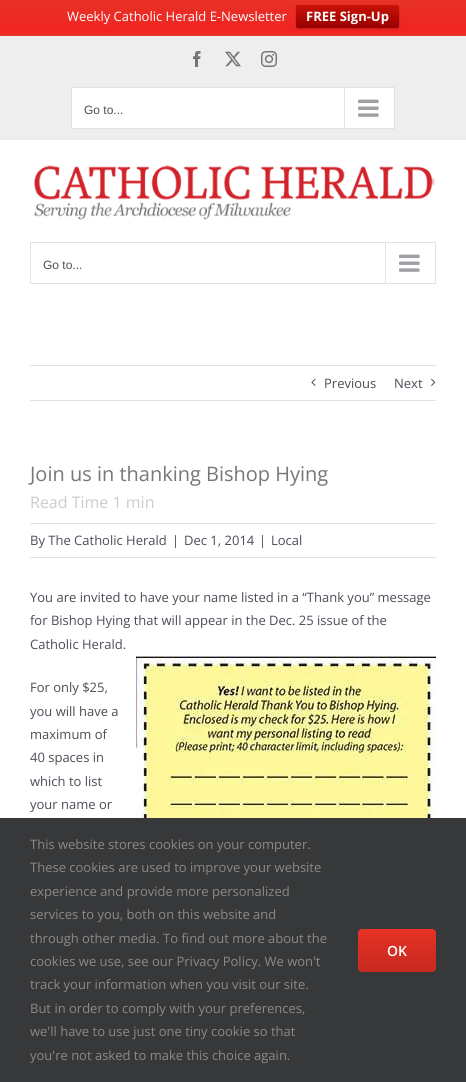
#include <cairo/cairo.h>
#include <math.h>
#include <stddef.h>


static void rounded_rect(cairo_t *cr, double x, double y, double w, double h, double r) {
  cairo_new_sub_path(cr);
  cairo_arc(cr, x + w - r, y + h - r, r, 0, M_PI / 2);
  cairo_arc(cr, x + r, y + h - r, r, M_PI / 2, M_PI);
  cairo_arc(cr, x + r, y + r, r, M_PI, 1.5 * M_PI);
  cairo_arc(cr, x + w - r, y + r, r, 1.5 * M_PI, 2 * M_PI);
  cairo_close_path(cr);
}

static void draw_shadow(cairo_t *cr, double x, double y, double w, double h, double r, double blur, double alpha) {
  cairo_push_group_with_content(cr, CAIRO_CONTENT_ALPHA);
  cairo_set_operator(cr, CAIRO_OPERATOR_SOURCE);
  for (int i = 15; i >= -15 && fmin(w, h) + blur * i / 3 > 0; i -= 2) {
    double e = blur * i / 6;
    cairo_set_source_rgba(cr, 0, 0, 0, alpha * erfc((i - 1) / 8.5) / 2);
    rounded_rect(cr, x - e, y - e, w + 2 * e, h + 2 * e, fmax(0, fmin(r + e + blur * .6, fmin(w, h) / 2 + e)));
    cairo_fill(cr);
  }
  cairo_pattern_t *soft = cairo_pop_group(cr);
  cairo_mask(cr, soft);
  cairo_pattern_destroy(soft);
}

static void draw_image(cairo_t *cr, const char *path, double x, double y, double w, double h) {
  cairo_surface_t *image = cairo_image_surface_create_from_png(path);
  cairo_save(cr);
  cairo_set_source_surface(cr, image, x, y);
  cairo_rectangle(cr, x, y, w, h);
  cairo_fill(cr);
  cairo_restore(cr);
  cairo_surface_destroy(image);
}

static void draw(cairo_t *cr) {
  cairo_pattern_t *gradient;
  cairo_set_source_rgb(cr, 1, 1, 1);
  cairo_paint(cr);
  gradient = cairo_pattern_create_linear(233, 0, 233, 33);
  cairo_pattern_add_color_stop_rgba(gradient, 0, 231 / 255.0, 50 / 255.0, 37 / 255.0, 1);
  cairo_pattern_add_color_stop_rgba(gradient, 1, 242 / 255.0, 34 / 255.0, 34 / 255.0, 1);
  cairo_set_source(cr, gradient);
  cairo_pattern_destroy(gradient);
  cairo_rectangle(cr, 0, 0, 466, 33);
  cairo_fill(cr);
  cairo_set_source_rgb(cr, 0, 0, 0);
  draw_shadow(cr, 296, 6, 103, 23, 2, 1, 0.2);
  gradient = cairo_pattern_create_linear(348, 5, 348, 28);
  cairo_pattern_add_color_stop_rgba(gradient, 0, 199 / 255.0, 18 / 255.0, 7 / 255.0, 1);
  cairo_pattern_add_color_stop_rgba(gradient, 1, 153 / 255.0, 0, 0, 1);
  cairo_set_source(cr, gradient);
  cairo_pattern_destroy(gradient);
  rounded_rect(cr, 296, 5, 103, 23, 2);
  cairo_fill(cr);
  cairo_set_source_rgb(cr, 238 / 255.0, 238 / 255.0, 238 / 255.0);
  cairo_rectangle(cr, 0, 36, 466, 104);
  cairo_fill(cr);
  cairo_set_source_rgb(cr, 231 / 255.0, 50 / 255.0, 37 / 255.0);
  cairo_rectangle(cr, 0, 33, 466, 3);
  cairo_fill(cr);
  draw_image(cr, "images/1.png", 193, 51, 8, 16);
  draw_image(cr, "images/2.png", 225, 51, 16, 16);
  draw_image(cr, "images/3.png", 261, 51, 16, 16);
  cairo_set_source_rgb(cr, 1, 1, 1);
  cairo_rectangle(cr, 71.5, 87.5, 323, 41);
  cairo_fill_preserve(cr);
  cairo_set_source_rgb(cr, 226 / 255.0, 226 / 255.0, 226 / 255.0);
  cairo_set_line_width(cr, 1);
  cairo_stroke(cr);
  cairo_rectangle(cr, 344, 88, 1, 40);
  cairo_fill(cr);
  draw_image(cr, "images/4.png", 358, 99, 21, 18);
  draw_image(cr, "images/5.png", 34, 165, 401, 55);
  cairo_rectangle(cr, 30.5, 242.5, 405, 41);
  cairo_stroke(cr);
  cairo_rectangle(cr, 385, 243, 1, 40);
  cairo_fill(cr);
  draw_image(cr, "images/4.png", 399, 254, 21, 18);
  cairo_rectangle(cr, 30, 365, 406, 1);
  cairo_fill(cr);
  cairo_rectangle(cr, 30, 400, 406, 1);
  cairo_fill(cr);
  draw_image(cr, "images/6.png", 311, 378, 5, 8);
  draw_image(cr, "images/7.png", 431, 378, 5, 8);
  cairo_rectangle(cr, 30, 523, 406, 1);
  cairo_fill(cr);
  cairo_rectangle(cr, 30, 557, 406, 1);
  cairo_fill(cr);
  draw_image(cr, "images/8.png", 136, 656, 300, 162);
  cairo_set_source_rgb(cr, 54 / 255.0, 56 / 255.0, 57 / 255.0);
  cairo_rectangle(cr, 0, 818, 466, 264);
  cairo_fill(cr);
  gradient = cairo_pattern_create_linear(397, 929, 397, 972);
  cairo_pattern_add_color_stop_rgba(gradient, 0, 231 / 255.0, 50 / 255.0, 37 / 255.0, 1);
  cairo_pattern_add_color_stop_rgba(gradient, 1, 198 / 255.0, 42 / 255.0, 31 / 255.0, 1);
  cairo_set_source(cr, gradient);
  cairo_pattern_destroy(gradient);
  rounded_rect(cr, 358, 929, 78, 43, 4);
  cairo_fill(cr);
  cairo_select_font_face(cr, "Open Sans", CAIRO_FONT_SLANT_NORMAL, CAIRO_FONT_WEIGHT_NORMAL);
  cairo_set_font_size(cr, 13);
  cairo_set_source_rgb(cr, 1, 1, 1);
  cairo_move_to(cr, 67, 21);
  cairo_show_text(cr, "Weekly Catholic Herald E-Newsletter");
  cairo_select_font_face(cr, "Open Sans", CAIRO_FONT_SLANT_NORMAL, CAIRO_FONT_WEIGHT_BOLD);
  cairo_move_to(cr, 306, 21);
  cairo_show_text(cr, "FREE Sign-Up");
  cairo_select_font_face(cr, "Liberation Sans", CAIRO_FONT_SLANT_NORMAL, CAIRO_FONT_WEIGHT_NORMAL);
  cairo_set_font_size(cr, 12);
  cairo_set_source_rgb(cr, 74 / 255.0, 78 / 255.0, 87 / 255.0);
  cairo_move_to(cr, 84, 114);
  cairo_show_text(cr, "Go to...");
  cairo_move_to(cr, 43, 269);
  cairo_show_text(cr, "Go to...");
  cairo_select_font_face(cr, "Open Sans", CAIRO_FONT_SLANT_NORMAL, CAIRO_FONT_WEIGHT_NORMAL);
  cairo_set_font_size(cr, 13);
  cairo_move_to(cr, 324, 388);
  cairo_show_text(cr, "Previous");
  cairo_move_to(cr, 394, 388);
  cairo_show_text(cr, "Next");
  cairo_set_font_size(cr, 20);
  cairo_set_source_rgb(cr, 119 / 255.0, 119 / 255.0, 119 / 255.0);
  cairo_move_to(cr, 30, 481);
  cairo_show_text(cr, "Join us in thanking Bishop Hying");
  cairo_set_font_size(cr, 16);
  cairo_set_source_rgb(cr, 204 / 255.0, 204 / 255.0, 204 / 255.0);
  cairo_move_to(cr, 30, 508);
  cairo_show_text(cr, "Read Time 1 min");
  cairo_set_font_size(cr, 13);
  cairo_set_source_rgb(cr, 74 / 255.0, 78 / 255.0, 87 / 255.0);
  cairo_move_to(cr, 30, 545);
  cairo_show_text(cr, "By The Catholic Herald");
  cairo_move_to(cr, 172, 545);
  cairo_show_text(cr, "|");
  cairo_move_to(cr, 184, 545);
  cairo_show_text(cr, "Dec 1, 2014");
  cairo_move_to(cr, 259, 545);
  cairo_show_text(cr, "|");
  cairo_move_to(cr, 271, 545);
  cairo_show_text(cr, "Local");
  cairo_move_to(cr, 30, 602);
  cairo_show_text(cr, "You are invited to have your name listed in a “Thank you” message");
  cairo_move_to(cr, 30, 625);
  cairo_show_text(cr, "for Bishop Hying that will appear in the Dec. 25 issue of the");
  cairo_move_to(cr, 30, 649);
  cairo_show_text(cr, "Catholic Herald.");
  cairo_move_to(cr, 30, 692);
  cairo_show_text(cr, "For only $25,");
  cairo_move_to(cr, 30, 716);
  cairo_show_text(cr, "you will have a");
  cairo_move_to(cr, 30, 739);
  cairo_show_text(cr, "maximum of");
  cairo_move_to(cr, 30, 762);
  cairo_show_text(cr, "40 spaces in");
  cairo_move_to(cr, 30, 786);
  cairo_show_text(cr, "which to list");
  cairo_move_to(cr, 30, 809);
  cairo_show_text(cr, "your name or");
  cairo_set_source_rgb(cr, 140 / 255.0, 137 / 255.0, 137 / 255.0);
  cairo_move_to(cr, 30, 849);
  cairo_show_text(cr, "This website stores cookies on your computer.");
  cairo_move_to(cr, 30, 872);
  cairo_show_text(cr, "These cookies are used to improve your website");
  cairo_move_to(cr, 30, 896);
  cairo_show_text(cr, "experience and provide more personalized");
  cairo_move_to(cr, 30, 919);
  cairo_show_text(cr, "services to you, both on this website and");
  cairo_move_to(cr, 30, 943);
  cairo_show_text(cr, "through other media. To find out more about the");
  cairo_move_to(cr, 30, 966);
  cairo_show_text(cr, "cookies we use, see our Privacy Policy. We won't");
  cairo_move_to(cr, 30, 989);
  cairo_show_text(cr, "track your information when you visit our site.");
  cairo_move_to(cr, 30, 1013);
  cairo_show_text(cr, "But in order to comply with your preferences,");
  cairo_move_to(cr, 30, 1036);
  cairo_show_text(cr, "we'll have to use just one tiny cookie so that");
  cairo_move_to(cr, 30, 1060);
  cairo_show_text(cr, "you're not asked to make this choice again.");
  cairo_select_font_face(cr, "Open Sans SemiBold", CAIRO_FONT_SLANT_NORMAL, CAIRO_FONT_WEIGHT_NORMAL);
  cairo_set_font_size(cr, 14);
  cairo_set_source_rgb(cr, 1, 1, 1);
  cairo_move_to(cr, 387, 956);
  cairo_show_text(cr, "OK");
}

int main(void) {
  cairo_surface_t *surface = cairo_image_surface_create(CAIRO_FORMAT_RGB24, 466, 1082);
  cairo_t *cr = cairo_create(surface);
  cairo_font_options_t *options = cairo_font_options_create();
  cairo_font_options_set_hint_metrics(options, CAIRO_HINT_METRICS_OFF);
  cairo_font_options_set_hint_style(options, CAIRO_HINT_STYLE_NONE);
  cairo_set_font_options(cr, options);
  cairo_set_miter_limit(cr, 4);
  draw(cr);
  cairo_surface_write_to_png(surface, "out.png");
  cairo_font_options_destroy(options);
  cairo_destroy(cr);
  cairo_surface_destroy(surface);
  return 0;
}
